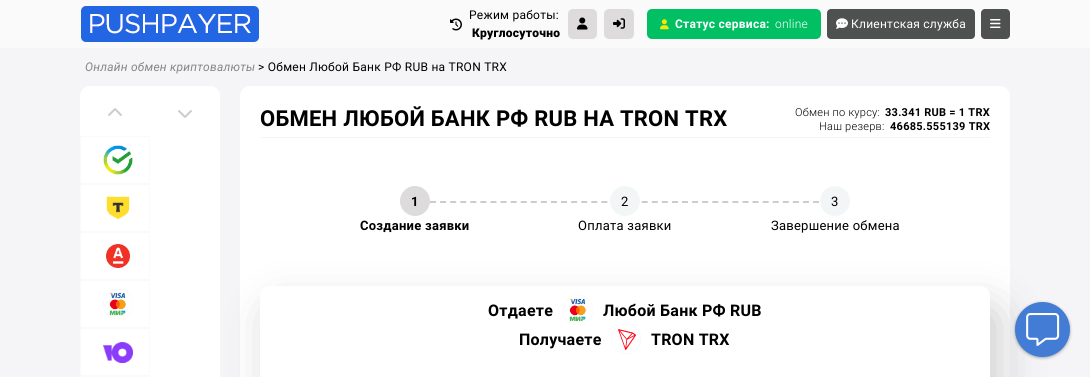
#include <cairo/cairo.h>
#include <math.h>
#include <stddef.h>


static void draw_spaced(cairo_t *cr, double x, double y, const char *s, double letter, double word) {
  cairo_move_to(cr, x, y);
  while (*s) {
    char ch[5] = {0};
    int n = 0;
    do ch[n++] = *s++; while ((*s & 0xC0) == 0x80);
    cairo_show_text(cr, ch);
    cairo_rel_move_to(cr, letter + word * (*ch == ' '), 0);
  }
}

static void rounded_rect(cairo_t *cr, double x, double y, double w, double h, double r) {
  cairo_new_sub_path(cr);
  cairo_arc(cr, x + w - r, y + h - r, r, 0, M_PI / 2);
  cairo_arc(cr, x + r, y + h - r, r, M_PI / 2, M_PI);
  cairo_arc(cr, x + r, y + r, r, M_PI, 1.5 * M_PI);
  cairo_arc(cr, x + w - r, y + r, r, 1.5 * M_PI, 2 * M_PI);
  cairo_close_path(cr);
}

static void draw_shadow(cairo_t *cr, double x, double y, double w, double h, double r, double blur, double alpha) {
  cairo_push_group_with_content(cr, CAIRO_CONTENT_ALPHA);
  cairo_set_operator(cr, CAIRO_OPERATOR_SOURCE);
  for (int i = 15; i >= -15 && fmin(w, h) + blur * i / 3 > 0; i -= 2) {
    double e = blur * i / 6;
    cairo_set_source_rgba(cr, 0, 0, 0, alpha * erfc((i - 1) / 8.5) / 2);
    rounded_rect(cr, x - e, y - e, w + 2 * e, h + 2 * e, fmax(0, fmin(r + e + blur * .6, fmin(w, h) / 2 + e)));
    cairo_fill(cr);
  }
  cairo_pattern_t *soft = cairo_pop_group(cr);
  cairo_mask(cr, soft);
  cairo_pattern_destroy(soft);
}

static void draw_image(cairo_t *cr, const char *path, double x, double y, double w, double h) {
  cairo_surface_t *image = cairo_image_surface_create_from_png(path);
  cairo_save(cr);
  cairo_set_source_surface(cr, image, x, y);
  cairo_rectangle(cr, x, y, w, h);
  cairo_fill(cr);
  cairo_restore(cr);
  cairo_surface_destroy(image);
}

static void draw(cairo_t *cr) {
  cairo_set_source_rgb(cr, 250 / 255.0, 250 / 255.0, 250 / 255.0);
  cairo_paint(cr);
  draw_image(cr, "images/1.png", 81, 6, 178, 36);
  draw_image(cr, "images/2.png", 450, 18, 12, 13);
  cairo_set_source_rgb(cr, 221 / 255.0, 219 / 255.0, 220 / 255.0);
  rounded_rect(cr, 568, 9, 29, 30, 5);
  cairo_fill(cr);
  draw_image(cr, "images/3.png", 577, 17, 11, 13);
  rounded_rect(cr, 604, 9, 30, 30, 5);
  cairo_fill(cr);
  draw_image(cr, "images/4.png", 613, 18, 12, 11);
  cairo_set_source_rgb(cr, 0, 192 / 255.0, 99 / 255.0);
  rounded_rect(cr, 647, 9, 174, 30, 5);
  cairo_fill(cr);
  draw_image(cr, "images/5.png", 660, 19, 9, 11);
  cairo_set_source_rgb(cr, 79 / 255.0, 80 / 255.0, 80 / 255.0);
  rounded_rect(cr, 827, 9, 148, 30, 4);
  cairo_fill(cr);
  draw_image(cr, "images/6.png", 836, 18, 12, 11);
  rounded_rect(cr, 981, 9, 29, 30, 4);
  cairo_fill(cr);
  draw_image(cr, "images/7.png", 990, 19, 11, 9);
  cairo_set_source_rgb(cr, 245 / 255.0, 245 / 255.0, 247 / 255.0);
  cairo_rectangle(cr, 0, 48, 1090, 329);
  cairo_fill(cr);
  cairo_set_source_rgb(cr, 1, 1, 1);
  rounded_rect(cr, 80, 86, 140, 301, 10);
  cairo_fill(cr);
  draw_image(cr, "images/8.png", 108, 108, 14, 8);
  draw_image(cr, "images/9.png", 178, 110, 14, 8);
  cairo_rectangle(cr, 80.5, 136.5, 69, 47);
  cairo_set_source_rgb(cr, 250 / 255.0, 250 / 255.0, 250 / 255.0);
  cairo_set_line_width(cr, 1);
  cairo_stroke(cr);
  draw_image(cr, "images/10.png", 103, 145, 30, 30);
  cairo_rectangle(cr, 80.5, 184.5, 69, 47);
  cairo_stroke(cr);
  draw_image(cr, "images/11.png", 106, 196, 24, 24);
  cairo_rectangle(cr, 80.5, 232.5, 69, 47);
  cairo_stroke(cr);
  draw_image(cr, "images/12.png", 106, 244, 24, 24);
  cairo_rectangle(cr, 80.5, 280.5, 69, 47);
  cairo_stroke(cr);
  draw_image(cr, "images/13.png", 103, 289, 30, 30);
  cairo_rectangle(cr, 80.5, 328.5, 69, 47);
  cairo_stroke(cr);
  draw_image(cr, "images/14.png", 103, 342, 30, 21);
  cairo_rectangle(cr, 80.5, 376.5, 69, 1);
  cairo_stroke(cr);
  cairo_set_source_rgb(cr, 1, 1, 1);
  rounded_rect(cr, 240, 86, 770, 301, 10);
  cairo_fill(cr);
  cairo_set_source_rgb(cr, 245 / 255.0, 245 / 255.0, 245 / 255.0);
  cairo_rectangle(cr, 260, 137, 730, 1);
  cairo_fill(cr);
  cairo_set_source_rgb(cr, 221 / 255.0, 219 / 255.0, 220 / 255.0);
  cairo_arc(cr, 415, 201, 15, 0, 2 * M_PI);
  cairo_fill(cr);
  cairo_new_path(cr);
  cairo_move_to(cr, 430, 202);
  cairo_line_to(cr, 839, 202);
  cairo_set_source_rgb(cr, 204 / 255.0, 204 / 255.0, 204 / 255.0);
  cairo_set_line_width(cr, 2);
  cairo_set_dash(cr, (double[]){6, 4.08}, 2, 0);
  cairo_stroke(cr);
  cairo_set_source_rgb(cr, 243 / 255.0, 246 / 255.0, 246 / 255.0);
  cairo_arc(cr, 625, 201, 15, 0, 2 * M_PI);
  cairo_fill(cr);
  cairo_arc(cr, 835, 201, 15, 0, 2 * M_PI);
  cairo_fill(cr);
  cairo_set_source_rgb(cr, 0, 0, 0);
  draw_shadow(cr, 270, 307, 730, 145, 10, 21.5, 0.2);
  cairo_set_source_rgb(cr, 1, 1, 1);
  rounded_rect(cr, 260, 286, 730, 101, 10);
  cairo_fill(cr);
  draw_image(cr, "images/15.png", 563, 295, 30, 30);
  draw_image(cr, "images/16.png", 611, 324, 30, 30);
  cairo_set_source_rgb(cr, 0, 0, 0);
  draw_shadow(cr, 1015, 303, 55, 55, 27.5, 1.5, 0.33);
  cairo_set_source_rgb(cr, 66 / 255.0, 124 / 255.0, 212 / 255.0);
  cairo_arc(cr, 1042.5, 329.5, 27.5, 0, 2 * M_PI);
  cairo_fill(cr);
  draw_image(cr, "images/17.png", 1026, 313, 34, 33);
  cairo_select_font_face(cr, "Roboto", CAIRO_FONT_SLANT_NORMAL, CAIRO_FONT_WEIGHT_NORMAL);
  cairo_set_font_size(cr, 12);
  cairo_set_source_rgb(cr, 0, 0, 0);
  draw_spaced(cr, 469, 19, "Режим работы:", 0.25, 0);
  cairo_select_font_face(cr, "Roboto Black", CAIRO_FONT_SLANT_NORMAL, CAIRO_FONT_WEIGHT_NORMAL);
  draw_spaced(cr, 472, 37, "Круглосуточно", 0.25, 0);
  cairo_select_font_face(cr, "Roboto", CAIRO_FONT_SLANT_NORMAL, CAIRO_FONT_WEIGHT_BOLD);
  cairo_set_source_rgb(cr, 1, 1, 1);
  draw_spaced(cr, 675, 28, "Статус сервиса:", 0.25, 0);
  cairo_select_font_face(cr, "Roboto Light", CAIRO_FONT_SLANT_NORMAL, CAIRO_FONT_WEIGHT_NORMAL);
  draw_spaced(cr, 775, 28, "online", 0.25, 0);
  cairo_select_font_face(cr, "Roboto", CAIRO_FONT_SLANT_NORMAL, CAIRO_FONT_WEIGHT_NORMAL);
  draw_spaced(cr, 851, 28, "Клиентская служба", 0.25, 0);
  cairo_select_font_face(cr, "Roboto", CAIRO_FONT_SLANT_ITALIC, CAIRO_FONT_WEIGHT_NORMAL);
  cairo_set_source_rgb(cr, 134 / 255.0, 134 / 255.0, 134 / 255.0);
  draw_spaced(cr, 85, 71, "Онлайн обмен криптовалюты", 0.25, 0);
  cairo_select_font_face(cr, "Roboto", CAIRO_FONT_SLANT_NORMAL, CAIRO_FONT_WEIGHT_NORMAL);
  cairo_set_source_rgb(cr, 0, 0, 0);
  draw_spaced(cr, 258, 71, "> Обмен Любой Банк РФ RUB на TRON TRX", 0.25, 0);
  cairo_select_font_face(cr, "Roboto", CAIRO_FONT_SLANT_NORMAL, CAIRO_FONT_WEIGHT_BOLD);
  cairo_set_font_size(cr, 22);
  draw_spaced(cr, 260, 126, "ОБМЕН ЛЮБОЙ БАНК РФ RUB НА TRON TRX", 0.25, 0);
  cairo_select_font_face(cr, "Roboto Light", CAIRO_FONT_SLANT_NORMAL, CAIRO_FONT_WEIGHT_NORMAL);
  cairo_set_font_size(cr, 11);
  draw_spaced(cr, 795, 116, "Обмен по курсу:", 0.25, 0);
  cairo_select_font_face(cr, "Roboto", CAIRO_FONT_SLANT_NORMAL, CAIRO_FONT_WEIGHT_BOLD);
  draw_spaced(cr, 885, 116, "33.341 RUB = 1 TRX", 0.25, 0);
  cairo_select_font_face(cr, "Roboto Light", CAIRO_FONT_SLANT_NORMAL, CAIRO_FONT_WEIGHT_NORMAL);
  draw_spaced(cr, 819, 130, "Наш резерв:", 0.25, 0);
  cairo_select_font_face(cr, "Roboto", CAIRO_FONT_SLANT_NORMAL, CAIRO_FONT_WEIGHT_BOLD);
  draw_spaced(cr, 890, 130, "46685.555139 TRX", 0.25, 0);
  cairo_set_font_size(cr, 13);
  draw_spaced(cr, 411, 206, "1", 0.25, 0);
  draw_spaced(cr, 360, 230, "Создание заявки", 0.25, 0);
  cairo_select_font_face(cr, "Roboto", CAIRO_FONT_SLANT_NORMAL, CAIRO_FONT_WEIGHT_NORMAL);
  draw_spaced(cr, 621, 206, "2", 0.25, 0);
  draw_spaced(cr, 578, 230, "Оплата заявки", 0.25, 0);
  draw_spaced(cr, 831, 206, "3", 0.25, 0);
  draw_spaced(cr, 771, 230, "Завершение обмена", 0.25, 0);
  cairo_select_font_face(cr, "Roboto", CAIRO_FONT_SLANT_NORMAL, CAIRO_FONT_WEIGHT_BOLD);
  cairo_set_font_size(cr, 16);
  draw_spaced(cr, 488, 316, "Отдаете", 0.25, 0);
  draw_spaced(cr, 603, 316, "Любой Банк РФ RUB", 0.25, 0);
  draw_spaced(cr, 519, 345, "Получаете", 0.25, 0);
  draw_spaced(cr, 651, 345, "TRON TRX", 0.25, 0);
}

int main(void) {
  cairo_surface_t *surface = cairo_image_surface_create(CAIRO_FORMAT_RGB24, 1090, 377);
  cairo_t *cr = cairo_create(surface);
  cairo_font_options_t *options = cairo_font_options_create();
  cairo_font_options_set_hint_metrics(options, CAIRO_HINT_METRICS_OFF);
  cairo_font_options_set_hint_style(options, CAIRO_HINT_STYLE_NONE);
  cairo_set_font_options(cr, options);
  cairo_set_miter_limit(cr, 4);
  draw(cr);
  cairo_surface_write_to_png(surface, "out.png");
  cairo_font_options_destroy(options);
  cairo_destroy(cr);
  cairo_surface_destroy(surface);
  return 0;
}
